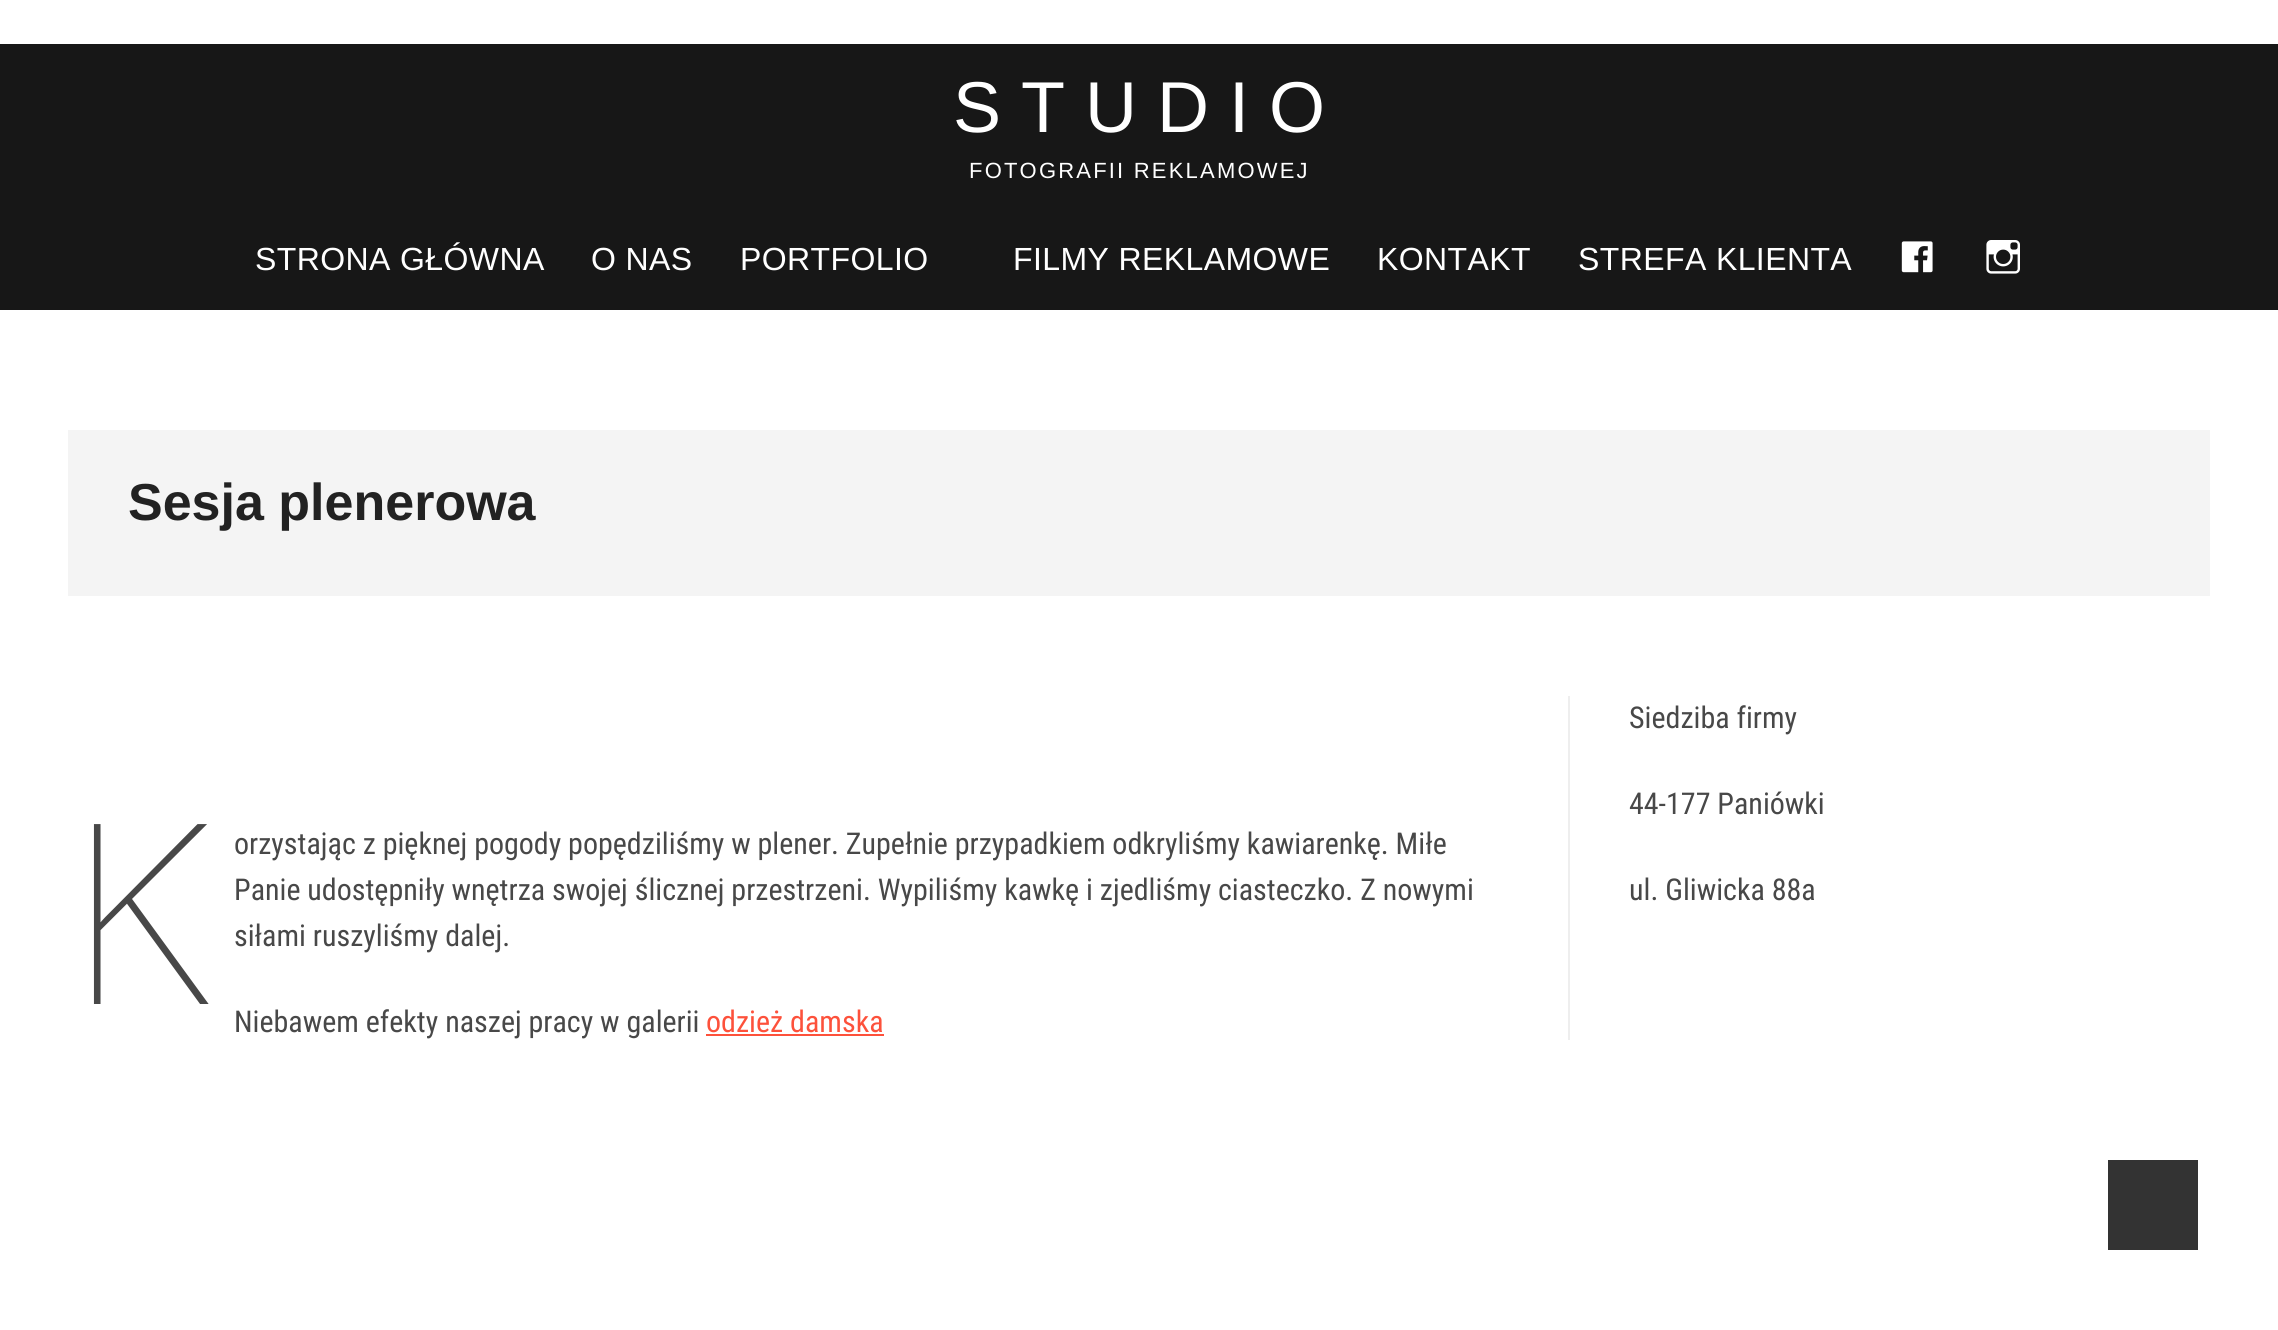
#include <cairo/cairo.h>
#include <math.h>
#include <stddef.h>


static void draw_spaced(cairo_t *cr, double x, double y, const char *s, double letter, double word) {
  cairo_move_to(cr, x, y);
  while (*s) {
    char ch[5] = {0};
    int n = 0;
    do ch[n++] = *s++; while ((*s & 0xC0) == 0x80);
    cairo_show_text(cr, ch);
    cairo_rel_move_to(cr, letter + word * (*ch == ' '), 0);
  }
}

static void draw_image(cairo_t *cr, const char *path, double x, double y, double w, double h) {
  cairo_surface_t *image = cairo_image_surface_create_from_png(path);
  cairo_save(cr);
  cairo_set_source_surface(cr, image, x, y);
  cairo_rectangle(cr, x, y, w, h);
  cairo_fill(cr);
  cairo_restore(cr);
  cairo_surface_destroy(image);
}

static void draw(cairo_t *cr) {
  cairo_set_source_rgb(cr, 1, 1, 1);
  cairo_paint(cr);
  cairo_set_source_rgb(cr, 23 / 255.0, 23 / 255.0, 23 / 255.0);
  cairo_rectangle(cr, 0, 44, 2278, 266);
  cairo_fill(cr);
  draw_image(cr, "images/1.png", 1901, 241, 32, 32);
  draw_image(cr, "images/2.png", 1986, 240, 34, 34);
  cairo_set_source_rgb(cr, 244 / 255.0, 244 / 255.0, 244 / 255.0);
  cairo_rectangle(cr, 68, 430, 2142, 166);
  cairo_fill(cr);
  cairo_set_source_rgb(cr, 238 / 255.0, 238 / 255.0, 238 / 255.0);
  cairo_rectangle(cr, 1568, 696, 2, 344);
  cairo_fill(cr);
  cairo_set_source_rgb(cr, 253 / 255.0, 81 / 255.0, 59 / 255.0);
  cairo_rectangle(cr, 706, 1034, 178, 2);
  cairo_fill(cr);
  cairo_set_source_rgb(cr, 51 / 255.0, 51 / 255.0, 51 / 255.0);
  cairo_rectangle(cr, 2108, 1160, 90, 90);
  cairo_fill(cr);
  cairo_select_font_face(cr, "Liberation Sans", CAIRO_FONT_SLANT_NORMAL, CAIRO_FONT_WEIGHT_NORMAL);
  cairo_set_font_size(cr, 72);
  cairo_set_source_rgb(cr, 1, 1, 1);
  cairo_move_to(cr, 953, 132);
  cairo_show_text(cr, "S T U D I O");
  cairo_set_font_size(cr, 22);
  draw_spaced(cr, 969, 178, "FOTOGRAFII REKLAMOWEJ", 2.2, 0);
  cairo_set_font_size(cr, 32);
  draw_spaced(cr, 255, 270, "STRONA GŁÓWNA", 0.4, 0);
  draw_spaced(cr, 591, 270, "O NAS", 0.4, 0);
  draw_spaced(cr, 740, 270, "PORTFOLIO", 0.4, 0);
  draw_spaced(cr, 1013, 270, "FILMY REKLAMOWE", 0.4, 0);
  draw_spaced(cr, 1377, 270, "KONTAKT", 0.4, 0);
  draw_spaced(cr, 1578, 270, "STREFA KLIENTA", 0.4, 0);
  cairo_select_font_face(cr, "Liberation Sans", CAIRO_FONT_SLANT_NORMAL, CAIRO_FONT_WEIGHT_BOLD);
  cairo_set_font_size(cr, 52);
  cairo_set_source_rgb(cr, 34 / 255.0, 34 / 255.0, 34 / 255.0);
  cairo_move_to(cr, 128, 520);
  cairo_show_text(cr, "Sesja plenerowa");
  cairo_select_font_face(cr, "Roboto Condensed", CAIRO_FONT_SLANT_NORMAL, CAIRO_FONT_WEIGHT_NORMAL);
  cairo_set_font_size(cr, 30);
  cairo_set_source_rgb(cr, 72 / 255.0, 72 / 255.0, 72 / 255.0);
  cairo_move_to(cr, 1629, 728);
  cairo_show_text(cr, "Siedziba firmy");
  cairo_move_to(cr, 1629, 814);
  cairo_show_text(cr, "44-177 Paniówki");
  cairo_move_to(cr, 1629, 900);
  cairo_show_text(cr, "ul. Gliwicka 88a");
  cairo_select_font_face(cr, "Noto Sans Thin", CAIRO_FONT_SLANT_NORMAL, CAIRO_FONT_WEIGHT_NORMAL);
  cairo_set_font_size(cr, 252);
  cairo_move_to(cr, 68, 1004);
  cairo_show_text(cr, "K");
  cairo_select_font_face(cr, "Roboto Condensed", CAIRO_FONT_SLANT_NORMAL, CAIRO_FONT_WEIGHT_NORMAL);
  cairo_set_font_size(cr, 30);
  cairo_move_to(cr, 234, 854);
  cairo_show_text(cr, "orzystając z pięknej pogody popędziliśmy w plener. Zupełnie przypadkiem odkryliśmy kawiarenkę. Miłe");
  cairo_move_to(cr, 234, 900);
  cairo_show_text(cr, "Panie udostępniły wnętrza swojej ślicznej przestrzeni. Wypiliśmy kawkę i zjedliśmy ciasteczko. Z nowymi");
  cairo_move_to(cr, 234, 946);
  cairo_show_text(cr, "siłami ruszyliśmy dalej.");
  cairo_move_to(cr, 234, 1032);
  cairo_show_text(cr, "Niebawem efekty naszej pracy w galerii");
  cairo_set_source_rgb(cr, 253 / 255.0, 81 / 255.0, 59 / 255.0);
  cairo_move_to(cr, 706, 1032);
  cairo_show_text(cr, "odzież damska");
}

int main(void) {
  cairo_surface_t *surface = cairo_image_surface_create(CAIRO_FORMAT_RGB24, 2278, 1330);
  cairo_t *cr = cairo_create(surface);
  cairo_font_options_t *options = cairo_font_options_create();
  cairo_font_options_set_hint_metrics(options, CAIRO_HINT_METRICS_OFF);
  cairo_font_options_set_hint_style(options, CAIRO_HINT_STYLE_NONE);
  cairo_set_font_options(cr, options);
  cairo_set_miter_limit(cr, 4);
  draw(cr);
  cairo_surface_write_to_png(surface, "out.png");
  cairo_font_options_destroy(options);
  cairo_destroy(cr);
  cairo_surface_destroy(surface);
  return 0;
}
